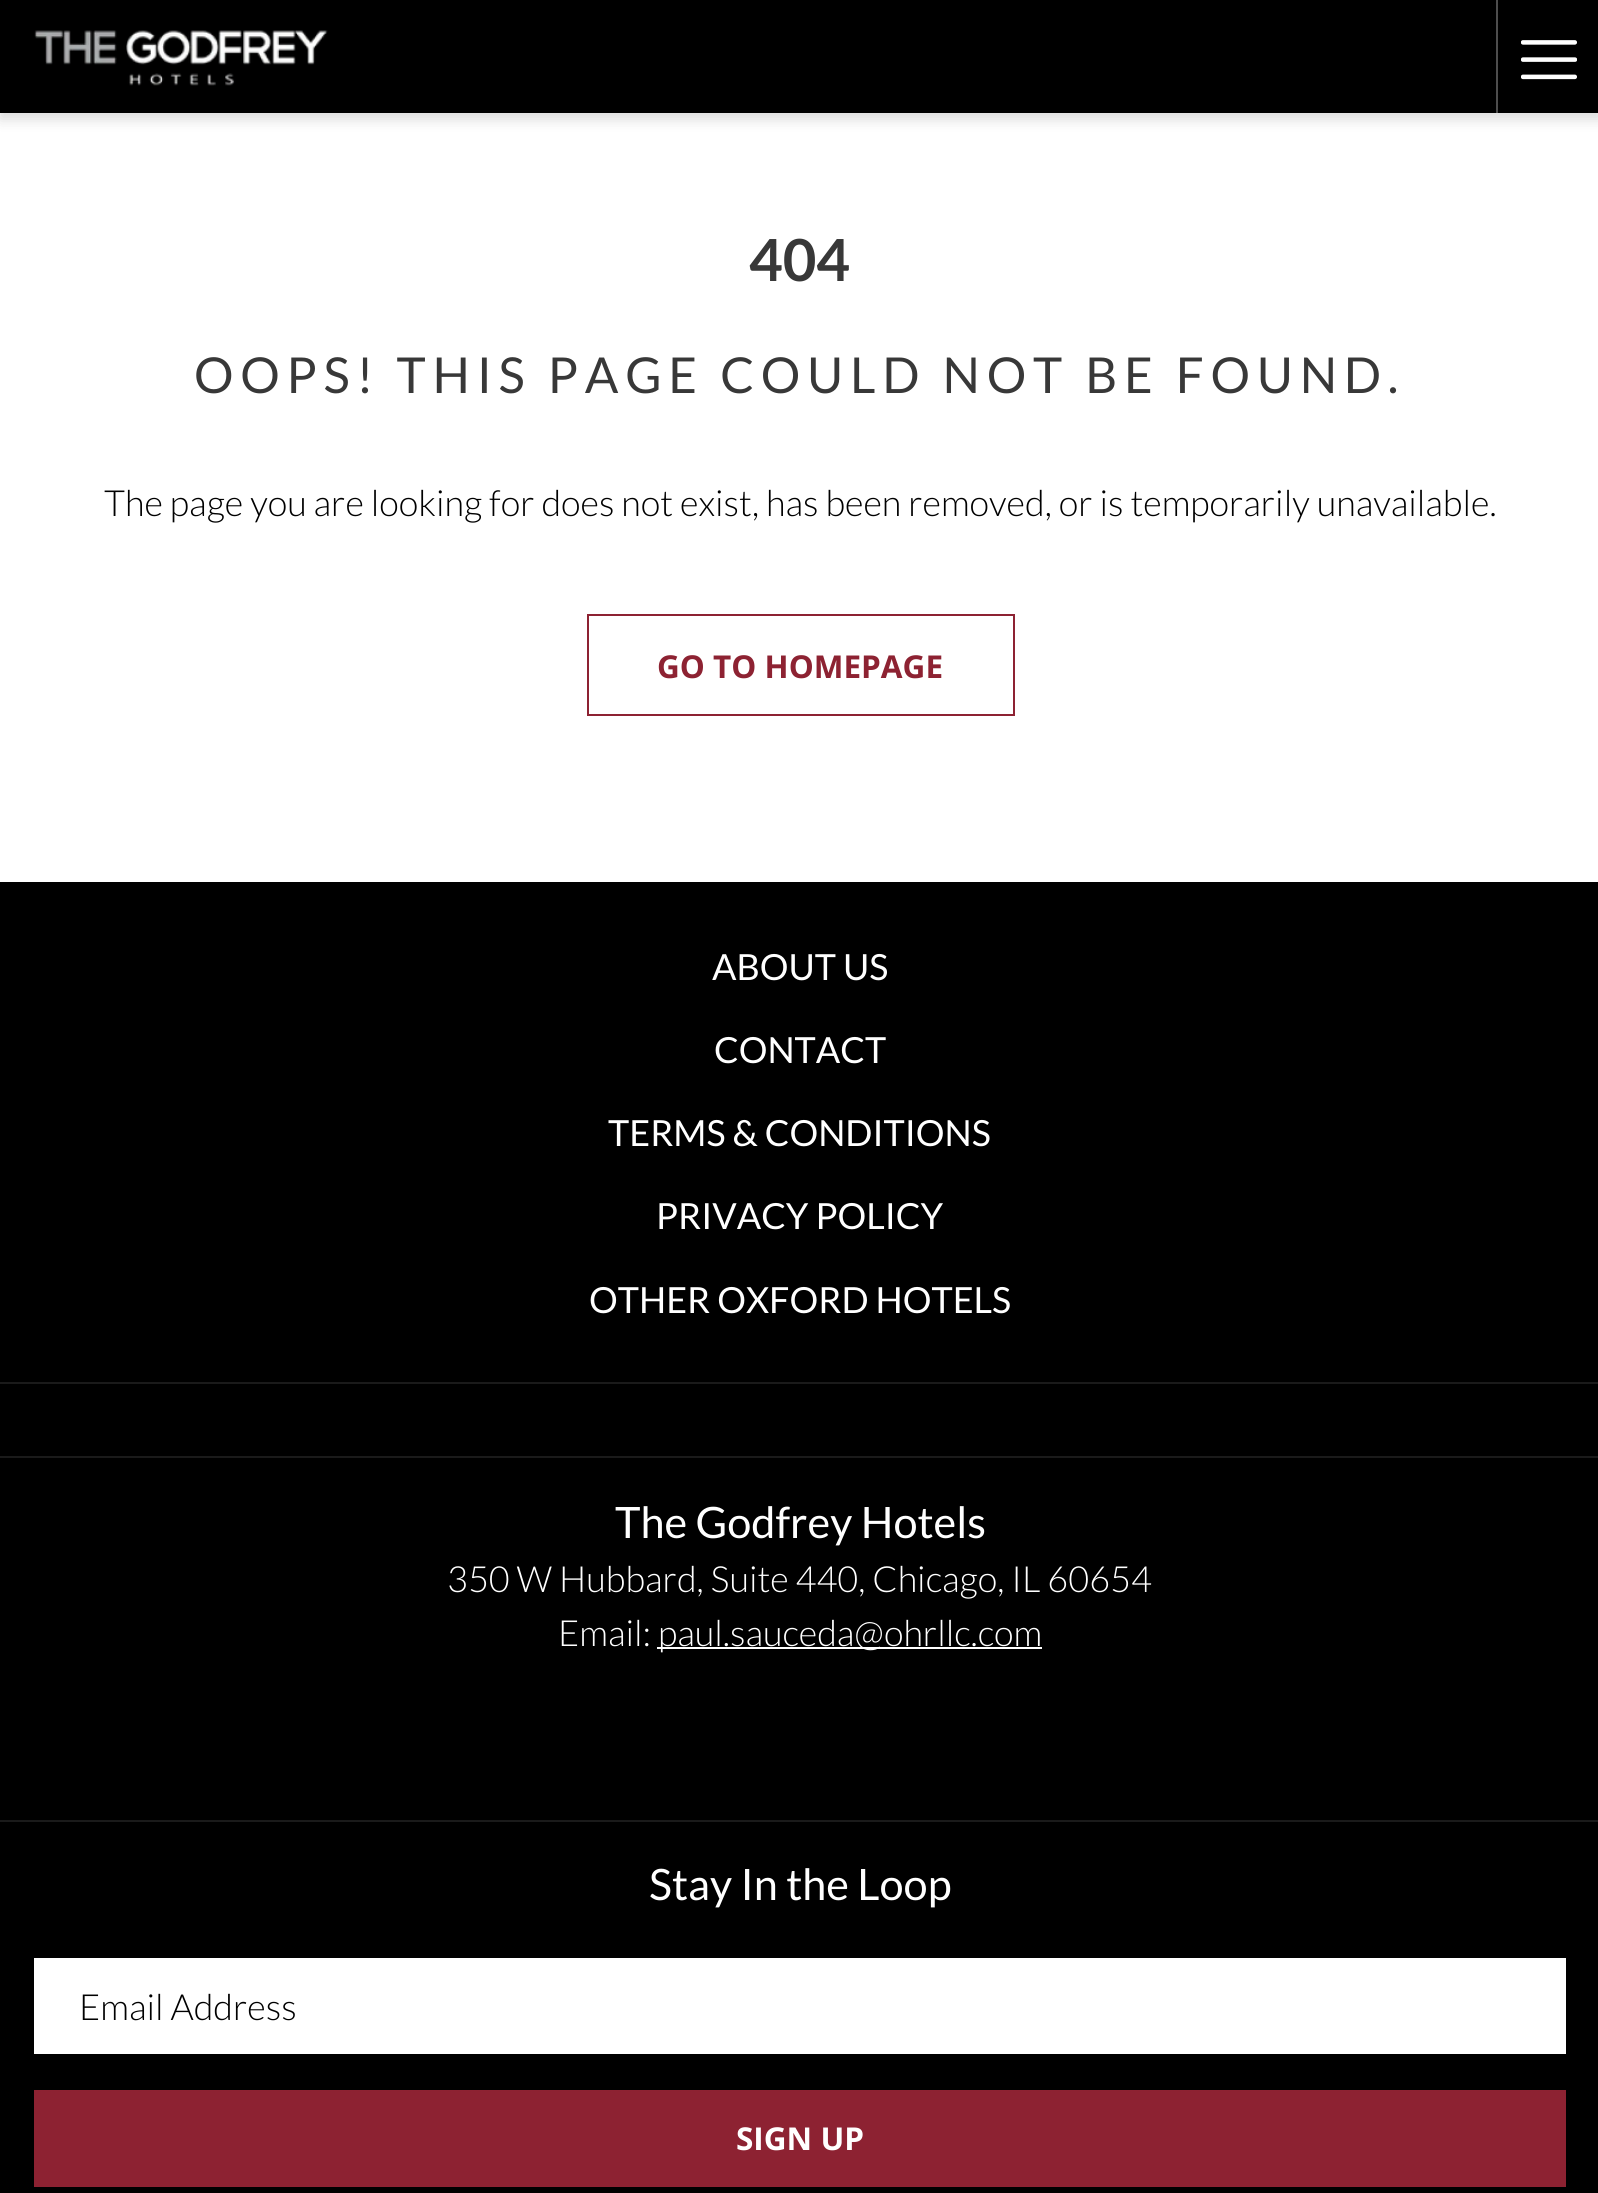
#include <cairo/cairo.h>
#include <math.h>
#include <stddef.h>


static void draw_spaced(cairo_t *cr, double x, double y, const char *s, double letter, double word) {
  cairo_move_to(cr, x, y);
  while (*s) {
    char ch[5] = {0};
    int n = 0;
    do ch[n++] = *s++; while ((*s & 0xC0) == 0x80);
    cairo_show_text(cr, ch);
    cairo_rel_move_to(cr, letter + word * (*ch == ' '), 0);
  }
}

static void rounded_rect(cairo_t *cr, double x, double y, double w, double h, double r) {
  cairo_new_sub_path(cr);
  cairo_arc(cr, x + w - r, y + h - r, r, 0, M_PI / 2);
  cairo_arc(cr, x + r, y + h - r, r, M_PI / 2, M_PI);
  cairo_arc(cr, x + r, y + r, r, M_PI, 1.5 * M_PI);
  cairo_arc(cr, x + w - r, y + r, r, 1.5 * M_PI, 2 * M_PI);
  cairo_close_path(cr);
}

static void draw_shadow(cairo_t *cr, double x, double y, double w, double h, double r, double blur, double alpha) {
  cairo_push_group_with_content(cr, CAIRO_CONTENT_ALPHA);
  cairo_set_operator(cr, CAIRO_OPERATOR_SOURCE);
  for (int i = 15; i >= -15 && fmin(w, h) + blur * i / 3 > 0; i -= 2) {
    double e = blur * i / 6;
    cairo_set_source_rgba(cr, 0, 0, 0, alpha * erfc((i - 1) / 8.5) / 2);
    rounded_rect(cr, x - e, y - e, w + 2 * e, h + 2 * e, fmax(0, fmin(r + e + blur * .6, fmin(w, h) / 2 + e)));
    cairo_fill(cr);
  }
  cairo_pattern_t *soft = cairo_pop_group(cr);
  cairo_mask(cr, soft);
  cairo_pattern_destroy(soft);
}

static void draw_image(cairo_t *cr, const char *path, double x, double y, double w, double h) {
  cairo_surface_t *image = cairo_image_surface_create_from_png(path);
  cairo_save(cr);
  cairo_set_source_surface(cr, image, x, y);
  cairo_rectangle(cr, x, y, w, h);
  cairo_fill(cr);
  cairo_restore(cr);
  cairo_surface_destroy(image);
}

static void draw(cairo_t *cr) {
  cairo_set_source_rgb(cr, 1, 1, 1);
  cairo_paint(cr);
  cairo_set_source_rgb(cr, 0, 0, 0);
  draw_shadow(cr, 0, 7, 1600, 112, 0, 7, 0.15);
  cairo_set_source_rgb(cr, 0, 0, 0);
  cairo_rectangle(cr, 0, 0, 1598, 113);
  cairo_fill(cr);
  draw_image(cr, "images/1.png", 34, 30, 294, 56);
  cairo_set_source_rgb(cr, 77 / 255.0, 77 / 255.0, 77 / 255.0);
  cairo_rectangle(cr, 1496, 0, 2, 113);
  cairo_fill(cr);
  draw_image(cr, "images/2.png", 1521, 40, 56, 40);
  cairo_rectangle(cr, 588, 615, 426, 100);
  cairo_set_source_rgb(cr, 141 / 255.0, 34 / 255.0, 50 / 255.0);
  cairo_stroke(cr);
  cairo_set_source_rgb(cr, 0, 0, 0);
  cairo_rectangle(cr, 0, 882, 1598, 1311);
  cairo_fill(cr);
  cairo_set_source_rgb(cr, 26 / 255.0, 26 / 255.0, 26 / 255.0);
  cairo_rectangle(cr, 0, 1382, 1598, 2);
  cairo_fill(cr);
  cairo_rectangle(cr, 0, 1456, 1598, 2);
  cairo_fill(cr);
  cairo_rectangle(cr, 0, 1820, 1598, 2);
  cairo_fill(cr);
  cairo_set_source_rgb(cr, 1, 1, 1);
  cairo_rectangle(cr, 657, 1647, 385, 2);
  cairo_fill(cr);
  cairo_rectangle(cr, 34, 1958, 1532, 96);
  cairo_fill(cr);
  cairo_set_source_rgb(cr, 141 / 255.0, 34 / 255.0, 50 / 255.0);
  cairo_rectangle(cr, 34, 2090, 1532, 97);
  cairo_fill(cr);
  cairo_select_font_face(cr, "Lato", CAIRO_FONT_SLANT_NORMAL, CAIRO_FONT_WEIGHT_BOLD);
  cairo_set_font_size(cr, 58);
  cairo_set_source_rgb(cr, 56 / 255.0, 56 / 255.0, 56 / 255.0);
  cairo_move_to(cr, 749, 281);
  cairo_show_text(cr, "404");
  cairo_select_font_face(cr, "Lato", CAIRO_FONT_SLANT_NORMAL, CAIRO_FONT_WEIGHT_NORMAL);
  cairo_set_font_size(cr, 49.5);
  draw_spaced(cr, 194, 393, "OOPS! THIS PAGE COULD NOT BE FOUND.", 6.75, 0);
  cairo_select_font_face(cr, "Lato Light", CAIRO_FONT_SLANT_NORMAL, CAIRO_FONT_WEIGHT_NORMAL);
  cairo_set_font_size(cr, 36);
  cairo_set_source_rgb(cr, 0, 0, 0);
  cairo_move_to(cr, 104, 516);
  cairo_show_text(cr, "The page you are looking for does not exist, has been removed, or is temporarily unavailable.");
  cairo_select_font_face(cr, "Open Sans", CAIRO_FONT_SLANT_NORMAL, CAIRO_FONT_WEIGHT_BOLD);
  cairo_set_font_size(cr, 31.5);
  cairo_set_source_rgb(cr, 141 / 255.0, 34 / 255.0, 50 / 255.0);
  cairo_move_to(cr, 657, 678);
  cairo_show_text(cr, "GO TO HOMEPAGE");
  cairo_select_font_face(cr, "Lato", CAIRO_FONT_SLANT_NORMAL, CAIRO_FONT_WEIGHT_NORMAL);
  cairo_set_font_size(cr, 36);
  cairo_set_source_rgb(cr, 1, 1, 1);
  cairo_move_to(cr, 712, 980);
  cairo_show_text(cr, "ABOUT US");
  cairo_move_to(cr, 714, 1063);
  cairo_show_text(cr, "CONTACT");
  cairo_move_to(cr, 608, 1146);
  cairo_show_text(cr, "TERMS & CONDITIONS");
  cairo_move_to(cr, 656, 1229);
  cairo_show_text(cr, "PRIVACY POLICY");
  cairo_move_to(cr, 589, 1313);
  cairo_show_text(cr, "OTHER OXFORD HOTELS");
  cairo_set_font_size(cr, 43.25);
  cairo_move_to(cr, 615, 1538);
  cairo_show_text(cr, "The Godfrey Hotels");
  cairo_select_font_face(cr, "Lato Light", CAIRO_FONT_SLANT_NORMAL, CAIRO_FONT_WEIGHT_NORMAL);
  cairo_set_font_size(cr, 36);
  cairo_move_to(cr, 447, 1592);
  cairo_show_text(cr, "350 W Hubbard, Suite 440, Chicago, IL 60654");
  cairo_move_to(cr, 558, 1646);
  cairo_show_text(cr, "Email:");
  cairo_move_to(cr, 658, 1646);
  cairo_show_text(cr, "paul.sauceda@ohrllc.com");
  cairo_select_font_face(cr, "Lato", CAIRO_FONT_SLANT_NORMAL, CAIRO_FONT_WEIGHT_NORMAL);
  cairo_set_font_size(cr, 43.25);
  cairo_move_to(cr, 649, 1900);
  cairo_show_text(cr, "Stay In the Loop");
  cairo_select_font_face(cr, "Lato Light", CAIRO_FONT_SLANT_NORMAL, CAIRO_FONT_WEIGHT_NORMAL);
  cairo_set_font_size(cr, 36);
  cairo_set_source_rgb(cr, 0, 0, 0);
  cairo_move_to(cr, 79, 2020);
  cairo_show_text(cr, "Email Address");
  cairo_select_font_face(cr, "Open Sans", CAIRO_FONT_SLANT_NORMAL, CAIRO_FONT_WEIGHT_BOLD);
  cairo_set_font_size(cr, 31.5);
  cairo_set_source_rgb(cr, 1, 1, 1);
  cairo_move_to(cr, 736, 2150);
  cairo_show_text(cr, "SIGN UP");
}

int main(void) {
  cairo_surface_t *surface = cairo_image_surface_create(CAIRO_FORMAT_RGB24, 1598, 2193);
  cairo_t *cr = cairo_create(surface);
  cairo_font_options_t *options = cairo_font_options_create();
  cairo_font_options_set_hint_metrics(options, CAIRO_HINT_METRICS_OFF);
  cairo_font_options_set_hint_style(options, CAIRO_HINT_STYLE_NONE);
  cairo_set_font_options(cr, options);
  cairo_set_miter_limit(cr, 4);
  draw(cr);
  cairo_surface_write_to_png(surface, "out.png");
  cairo_font_options_destroy(options);
  cairo_destroy(cr);
  cairo_surface_destroy(surface);
  return 0;
}
